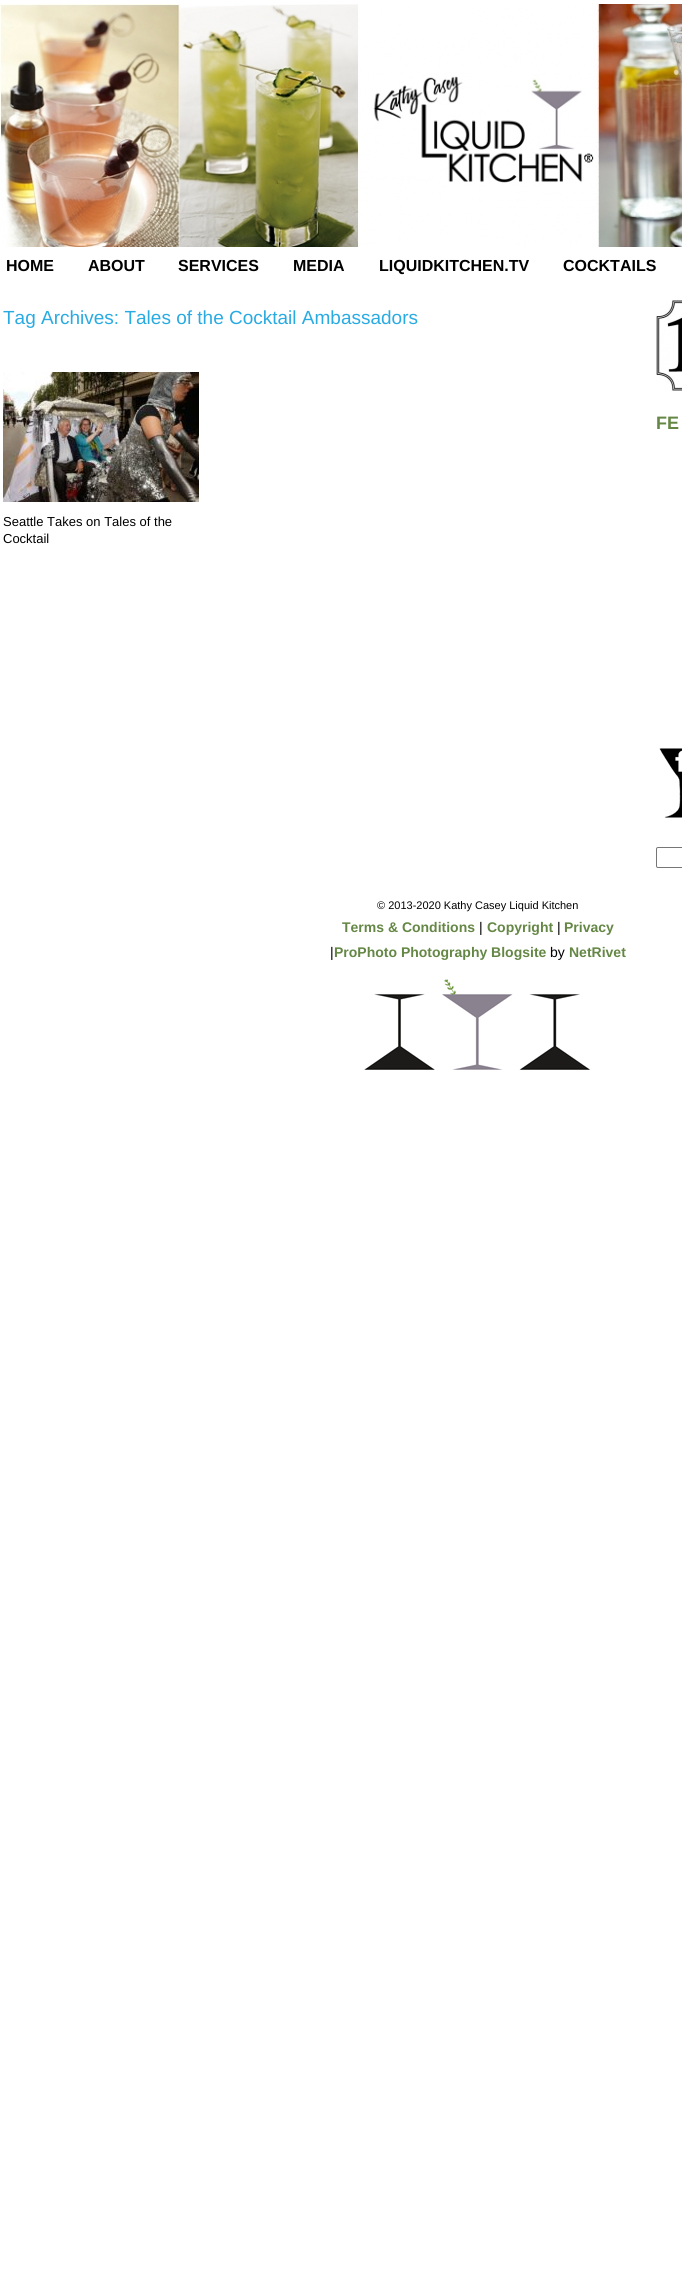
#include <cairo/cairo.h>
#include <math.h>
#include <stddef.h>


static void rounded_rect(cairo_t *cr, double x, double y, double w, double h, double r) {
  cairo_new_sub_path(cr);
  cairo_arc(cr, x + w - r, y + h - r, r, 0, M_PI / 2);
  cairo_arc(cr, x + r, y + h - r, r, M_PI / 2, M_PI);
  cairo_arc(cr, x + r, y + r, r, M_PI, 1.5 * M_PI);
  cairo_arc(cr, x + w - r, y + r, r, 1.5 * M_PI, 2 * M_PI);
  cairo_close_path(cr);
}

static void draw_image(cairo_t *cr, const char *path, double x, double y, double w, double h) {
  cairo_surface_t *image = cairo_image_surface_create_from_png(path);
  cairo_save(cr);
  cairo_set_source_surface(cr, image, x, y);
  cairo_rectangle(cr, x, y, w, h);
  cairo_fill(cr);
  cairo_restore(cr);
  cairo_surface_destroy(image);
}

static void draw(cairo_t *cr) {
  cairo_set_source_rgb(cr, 1, 1, 1);
  cairo_paint(cr);
  draw_image(cr, "images/1.png", 364, 979, 226, 91);
  draw_image(cr, "images/2.png", 0, 4, 682, 243);
  draw_image(cr, "images/3.png", 3, 372, 196, 130);
  draw_image(cr, "images/4.png", 656, 300, 26, 91);
  draw_image(cr, "images/5.png", 659, 748, 23, 70);
  rounded_rect(cr, 656.5, 847.5, 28, 20, 1.5);
  cairo_set_source_rgb(cr, 118 / 255.0, 118 / 255.0, 118 / 255.0);
  cairo_set_line_width(cr, 1);
  cairo_stroke(cr);
  cairo_select_font_face(cr, "Liberation Sans", CAIRO_FONT_SLANT_NORMAL, CAIRO_FONT_WEIGHT_BOLD);
  cairo_set_font_size(cr, 16);
  cairo_set_source_rgb(cr, 0, 0, 0);
  cairo_move_to(cr, 6, 271);
  cairo_show_text(cr, "HOME");
  cairo_move_to(cr, 88, 271);
  cairo_show_text(cr, "ABOUT");
  cairo_move_to(cr, 178, 271);
  cairo_show_text(cr, "SERVICES");
  cairo_move_to(cr, 293, 271);
  cairo_show_text(cr, "MEDIA");
  cairo_move_to(cr, 379, 271);
  cairo_show_text(cr, "LIQUIDKITCHEN.TV");
  cairo_move_to(cr, 563, 271);
  cairo_show_text(cr, "COCKTAILS");
  cairo_select_font_face(cr, "Liberation Sans", CAIRO_FONT_SLANT_NORMAL, CAIRO_FONT_WEIGHT_NORMAL);
  cairo_set_font_size(cr, 19);
  cairo_set_source_rgb(cr, 41 / 255.0, 171 / 255.0, 226 / 255.0);
  cairo_move_to(cr, 3, 324);
  cairo_show_text(cr, "Tag Archives: Tales of the Cocktail Ambassadors");
  cairo_set_font_size(cr, 13);
  cairo_set_source_rgb(cr, 0, 0, 0);
  cairo_move_to(cr, 3, 526);
  cairo_show_text(cr, "Seattle Takes on Tales of the");
  cairo_move_to(cr, 3, 543);
  cairo_show_text(cr, "Cocktail");
  cairo_select_font_face(cr, "Liberation Sans", CAIRO_FONT_SLANT_NORMAL, CAIRO_FONT_WEIGHT_BOLD);
  cairo_set_font_size(cr, 18);
  cairo_set_source_rgb(cr, 101 / 255.0, 135 / 255.0, 69 / 255.0);
  cairo_move_to(cr, 656, 429);
  cairo_show_text(cr, "FE");
  cairo_select_font_face(cr, "Liberation Sans", CAIRO_FONT_SLANT_NORMAL, CAIRO_FONT_WEIGHT_NORMAL);
  cairo_set_font_size(cr, 11);
  cairo_set_source_rgb(cr, 0, 0, 0);
  cairo_move_to(cr, 377, 909);
  cairo_show_text(cr, "© 2013-2020 Kathy Casey Liquid Kitchen");
  cairo_select_font_face(cr, "Liberation Sans", CAIRO_FONT_SLANT_NORMAL, CAIRO_FONT_WEIGHT_BOLD);
  cairo_set_font_size(cr, 14);
  cairo_set_source_rgb(cr, 101 / 255.0, 135 / 255.0, 69 / 255.0);
  cairo_move_to(cr, 342, 932);
  cairo_show_text(cr, "Terms & Conditions");
  cairo_select_font_face(cr, "Liberation Sans", CAIRO_FONT_SLANT_NORMAL, CAIRO_FONT_WEIGHT_NORMAL);
  cairo_set_source_rgb(cr, 0, 0, 0);
  cairo_move_to(cr, 479, 932);
  cairo_show_text(cr, "|");
  cairo_select_font_face(cr, "Liberation Sans", CAIRO_FONT_SLANT_NORMAL, CAIRO_FONT_WEIGHT_BOLD);
  cairo_set_source_rgb(cr, 101 / 255.0, 135 / 255.0, 69 / 255.0);
  cairo_move_to(cr, 487, 932);
  cairo_show_text(cr, "Copyright");
  cairo_select_font_face(cr, "Liberation Sans", CAIRO_FONT_SLANT_NORMAL, CAIRO_FONT_WEIGHT_NORMAL);
  cairo_set_source_rgb(cr, 0, 0, 0);
  cairo_move_to(cr, 557, 932);
  cairo_show_text(cr, "|");
  cairo_select_font_face(cr, "Liberation Sans", CAIRO_FONT_SLANT_NORMAL, CAIRO_FONT_WEIGHT_BOLD);
  cairo_set_source_rgb(cr, 101 / 255.0, 135 / 255.0, 69 / 255.0);
  cairo_move_to(cr, 564, 932);
  cairo_show_text(cr, "Privacy");
  cairo_select_font_face(cr, "Liberation Sans", CAIRO_FONT_SLANT_NORMAL, CAIRO_FONT_WEIGHT_NORMAL);
  cairo_set_source_rgb(cr, 0, 0, 0);
  cairo_move_to(cr, 330, 957);
  cairo_show_text(cr, "|");
  cairo_select_font_face(cr, "Liberation Sans", CAIRO_FONT_SLANT_NORMAL, CAIRO_FONT_WEIGHT_BOLD);
  cairo_set_source_rgb(cr, 101 / 255.0, 135 / 255.0, 69 / 255.0);
  cairo_move_to(cr, 334, 957);
  cairo_show_text(cr, "ProPhoto Photography Blogsite");
  cairo_select_font_face(cr, "Liberation Sans", CAIRO_FONT_SLANT_NORMAL, CAIRO_FONT_WEIGHT_NORMAL);
  cairo_set_source_rgb(cr, 0, 0, 0);
  cairo_move_to(cr, 550, 957);
  cairo_show_text(cr, "by");
  cairo_select_font_face(cr, "Liberation Sans", CAIRO_FONT_SLANT_NORMAL, CAIRO_FONT_WEIGHT_BOLD);
  cairo_set_source_rgb(cr, 101 / 255.0, 135 / 255.0, 69 / 255.0);
  cairo_move_to(cr, 569, 957);
  cairo_show_text(cr, "NetRivet");
}

int main(void) {
  cairo_surface_t *surface = cairo_image_surface_create(CAIRO_FORMAT_RGB24, 682, 2275);
  cairo_t *cr = cairo_create(surface);
  cairo_font_options_t *options = cairo_font_options_create();
  cairo_font_options_set_hint_metrics(options, CAIRO_HINT_METRICS_OFF);
  cairo_font_options_set_hint_style(options, CAIRO_HINT_STYLE_NONE);
  cairo_set_font_options(cr, options);
  cairo_set_miter_limit(cr, 4);
  draw(cr);
  cairo_surface_write_to_png(surface, "out.png");
  cairo_font_options_destroy(options);
  cairo_destroy(cr);
  cairo_surface_destroy(surface);
  return 0;
}
